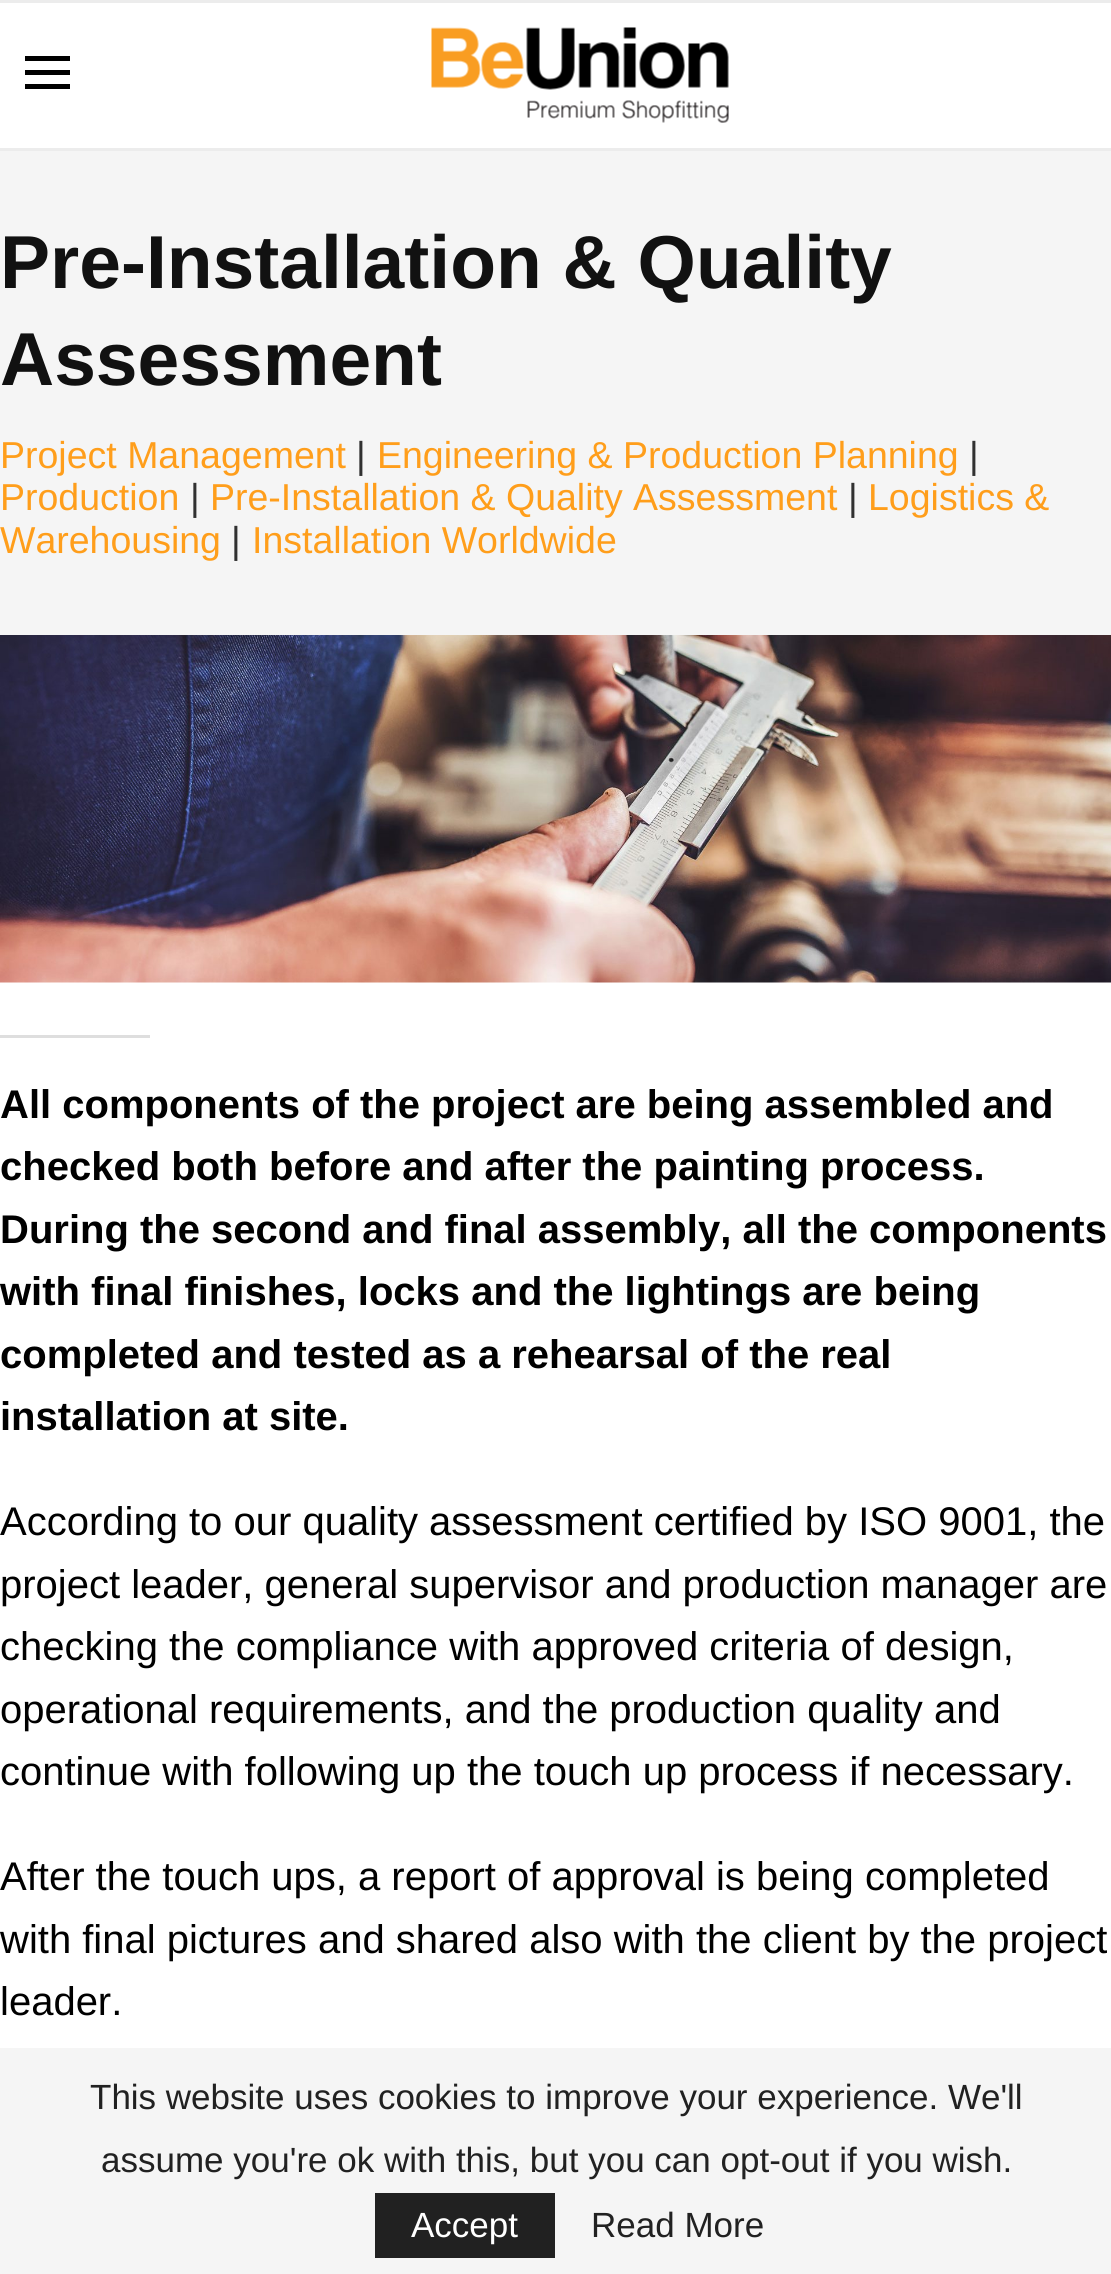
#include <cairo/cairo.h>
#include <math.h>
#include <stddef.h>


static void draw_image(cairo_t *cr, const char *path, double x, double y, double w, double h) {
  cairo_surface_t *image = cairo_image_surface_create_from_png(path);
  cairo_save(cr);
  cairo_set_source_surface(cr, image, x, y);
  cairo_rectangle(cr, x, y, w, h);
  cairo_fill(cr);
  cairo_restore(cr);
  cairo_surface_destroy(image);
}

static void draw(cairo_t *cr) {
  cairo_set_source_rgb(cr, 1, 1, 1);
  cairo_paint(cr);
  cairo_set_source_rgb(cr, 236 / 255.0, 236 / 255.0, 236 / 255.0);
  cairo_rectangle(cr, 0, 0, 1111, 3);
  cairo_fill(cr);
  cairo_rectangle(cr, 0, 148, 1111, 3);
  cairo_fill(cr);
  cairo_set_source_rgb(cr, 0, 0, 0);
  cairo_rectangle(cr, 25, 56, 45, 5);
  cairo_fill(cr);
  cairo_rectangle(cr, 25, 70, 45, 5);
  cairo_fill(cr);
  cairo_rectangle(cr, 25, 84, 45, 5);
  cairo_fill(cr);
  draw_image(cr, "images/1.png", 431, 27, 298, 96);
  cairo_set_source_rgb(cr, 245 / 255.0, 245 / 255.0, 245 / 255.0);
  cairo_rectangle(cr, 0, 151, 1111, 484);
  cairo_fill(cr);
  draw_image(cr, "images/2.png", 0, 635, 1111, 348);
  cairo_set_source_rgb(cr, 222 / 255.0, 222 / 255.0, 222 / 255.0);
  cairo_rectangle(cr, 0, 1035, 150, 3);
  cairo_fill(cr);
  cairo_set_source_rgb(cr, 245 / 255.0, 245 / 255.0, 245 / 255.0);
  cairo_rectangle(cr, 0, 2048, 1111, 226);
  cairo_fill(cr);
  cairo_set_source_rgb(cr, 33 / 255.0, 33 / 255.0, 33 / 255.0);
  cairo_rectangle(cr, 375, 2193, 180, 65);
  cairo_fill(cr);
  cairo_select_font_face(cr, "Liberation Sans", CAIRO_FONT_SLANT_NORMAL, CAIRO_FONT_WEIGHT_BOLD);
  cairo_set_font_size(cr, 75);
  cairo_set_source_rgb(cr, 17 / 255.0, 17 / 255.0, 17 / 255.0);
  cairo_move_to(cr, 0, 288);
  cairo_show_text(cr, "Pre-Installation & Quality");
  cairo_move_to(cr, 0, 385);
  cairo_show_text(cr, "Assessment");
  cairo_select_font_face(cr, "Liberation Sans", CAIRO_FONT_SLANT_NORMAL, CAIRO_FONT_WEIGHT_NORMAL);
  cairo_set_font_size(cr, 37.5);
  cairo_set_source_rgb(cr, 1, 158 / 255.0, 27 / 255.0);
  cairo_move_to(cr, 0, 468);
  cairo_show_text(cr, "Project Management");
  cairo_set_source_rgb(cr, 49 / 255.0, 49 / 255.0, 49 / 255.0);
  cairo_move_to(cr, 356, 468);
  cairo_show_text(cr, "|");
  cairo_set_source_rgb(cr, 1, 158 / 255.0, 27 / 255.0);
  cairo_move_to(cr, 377, 468);
  cairo_show_text(cr, "Engineering & Production Planning");
  cairo_set_source_rgb(cr, 49 / 255.0, 49 / 255.0, 49 / 255.0);
  cairo_move_to(cr, 969, 468);
  cairo_show_text(cr, "|");
  cairo_set_source_rgb(cr, 1, 158 / 255.0, 27 / 255.0);
  cairo_move_to(cr, 0, 510);
  cairo_show_text(cr, "Production");
  cairo_set_source_rgb(cr, 49 / 255.0, 49 / 255.0, 49 / 255.0);
  cairo_move_to(cr, 190, 510);
  cairo_show_text(cr, "|");
  cairo_set_source_rgb(cr, 1, 158 / 255.0, 27 / 255.0);
  cairo_move_to(cr, 210, 510);
  cairo_show_text(cr, "Pre-Installation & Quality Assessment");
  cairo_set_source_rgb(cr, 49 / 255.0, 49 / 255.0, 49 / 255.0);
  cairo_move_to(cr, 848, 510);
  cairo_show_text(cr, "|");
  cairo_set_source_rgb(cr, 1, 158 / 255.0, 27 / 255.0);
  cairo_move_to(cr, 868, 510);
  cairo_show_text(cr, "Logistics &");
  cairo_move_to(cr, 0, 553);
  cairo_show_text(cr, "Warehousing");
  cairo_set_source_rgb(cr, 49 / 255.0, 49 / 255.0, 49 / 255.0);
  cairo_move_to(cr, 231, 553);
  cairo_show_text(cr, "|");
  cairo_set_source_rgb(cr, 1, 158 / 255.0, 27 / 255.0);
  cairo_move_to(cr, 252, 553);
  cairo_show_text(cr, "Installation Worldwide");
  cairo_select_font_face(cr, "Liberation Sans", CAIRO_FONT_SLANT_NORMAL, CAIRO_FONT_WEIGHT_BOLD);
  cairo_set_font_size(cr, 40);
  cairo_set_source_rgb(cr, 0, 0, 0);
  cairo_move_to(cr, 0, 1118);
  cairo_show_text(cr, "All components of the project are being assembled and");
  cairo_move_to(cr, 0, 1180);
  cairo_show_text(cr, "checked both before and after the painting process.");
  cairo_move_to(cr, 0, 1243);
  cairo_show_text(cr, "During the second and final assembly, all the components");
  cairo_move_to(cr, 0, 1305);
  cairo_show_text(cr, "with final finishes, locks and the lightings are being");
  cairo_move_to(cr, 0, 1368);
  cairo_show_text(cr, "completed and tested as a rehearsal of the real");
  cairo_move_to(cr, 0, 1430);
  cairo_show_text(cr, "installation at site.");
  cairo_select_font_face(cr, "Liberation Sans", CAIRO_FONT_SLANT_NORMAL, CAIRO_FONT_WEIGHT_NORMAL);
  cairo_move_to(cr, 0, 1535);
  cairo_show_text(cr, "According to our quality assessment certified by ISO 9001, the");
  cairo_move_to(cr, 0, 1598);
  cairo_show_text(cr, "project leader, general supervisor and production manager are");
  cairo_move_to(cr, 0, 1660);
  cairo_show_text(cr, "checking the compliance with approved criteria of design,");
  cairo_move_to(cr, 0, 1723);
  cairo_show_text(cr, "operational requirements, and the production quality and");
  cairo_move_to(cr, 0, 1785);
  cairo_show_text(cr, "continue with following up the touch up process if necessary.");
  cairo_move_to(cr, 0, 1890);
  cairo_show_text(cr, "After the touch ups, a report of approval is being completed");
  cairo_move_to(cr, 0, 1953);
  cairo_show_text(cr, "with final pictures and shared also with the client by the project");
  cairo_move_to(cr, 0, 2015);
  cairo_show_text(cr, "leader.");
  cairo_set_font_size(cr, 35);
  cairo_set_source_rgb(cr, 33 / 255.0, 33 / 255.0, 33 / 255.0);
  cairo_move_to(cr, 90, 2109);
  cairo_show_text(cr, "This website uses cookies to improve your experience. We'll");
  cairo_move_to(cr, 101, 2172);
  cairo_show_text(cr, "assume you're ok with this, but you can opt-out if you wish.");
  cairo_set_source_rgb(cr, 1, 1, 1);
  cairo_move_to(cr, 411, 2237);
  cairo_show_text(cr, "Accept");
  cairo_set_source_rgb(cr, 33 / 255.0, 33 / 255.0, 33 / 255.0);
  cairo_move_to(cr, 591, 2237);
  cairo_show_text(cr, "Read More");
}

int main(void) {
  cairo_surface_t *surface = cairo_image_surface_create(CAIRO_FORMAT_RGB24, 1111, 2274);
  cairo_t *cr = cairo_create(surface);
  cairo_font_options_t *options = cairo_font_options_create();
  cairo_font_options_set_hint_metrics(options, CAIRO_HINT_METRICS_OFF);
  cairo_font_options_set_hint_style(options, CAIRO_HINT_STYLE_NONE);
  cairo_set_font_options(cr, options);
  cairo_set_miter_limit(cr, 4);
  draw(cr);
  cairo_surface_write_to_png(surface, "out.png");
  cairo_font_options_destroy(options);
  cairo_destroy(cr);
  cairo_surface_destroy(surface);
  return 0;
}
